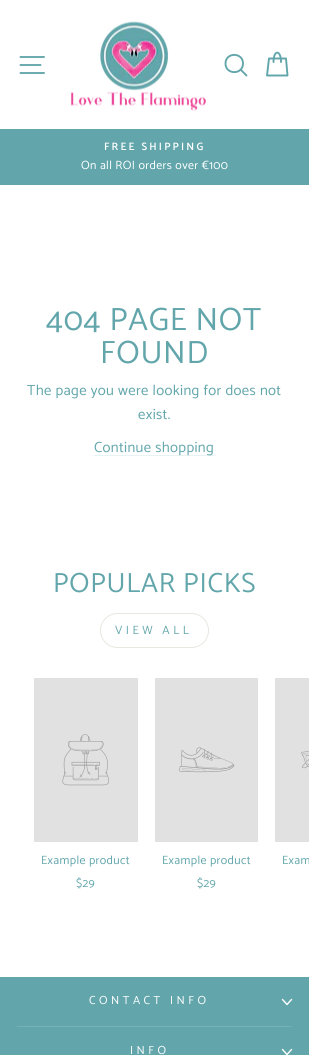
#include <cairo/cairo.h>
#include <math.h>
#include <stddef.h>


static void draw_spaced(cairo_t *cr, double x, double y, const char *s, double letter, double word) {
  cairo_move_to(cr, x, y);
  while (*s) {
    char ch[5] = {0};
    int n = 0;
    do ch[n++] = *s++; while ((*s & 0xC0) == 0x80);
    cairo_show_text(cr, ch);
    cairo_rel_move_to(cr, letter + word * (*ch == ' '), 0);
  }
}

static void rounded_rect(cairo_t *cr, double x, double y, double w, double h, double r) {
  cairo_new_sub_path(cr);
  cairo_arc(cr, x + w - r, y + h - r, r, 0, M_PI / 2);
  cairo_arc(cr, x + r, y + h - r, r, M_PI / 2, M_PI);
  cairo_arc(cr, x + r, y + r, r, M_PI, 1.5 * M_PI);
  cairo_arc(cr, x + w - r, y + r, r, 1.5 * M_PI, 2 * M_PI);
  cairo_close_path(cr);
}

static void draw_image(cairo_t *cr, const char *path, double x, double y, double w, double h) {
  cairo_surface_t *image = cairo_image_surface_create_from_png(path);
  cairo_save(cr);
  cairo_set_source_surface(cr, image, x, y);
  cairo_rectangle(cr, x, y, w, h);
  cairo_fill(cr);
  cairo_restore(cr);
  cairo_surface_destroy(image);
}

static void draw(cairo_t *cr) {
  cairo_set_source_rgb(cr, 1, 1, 1);
  cairo_paint(cr);
  cairo_new_path(cr);
  cairo_move_to(cr, 20.5, 57);
  cairo_line_to(cr, 44, 57);
  cairo_move_to(cr, 20.5, 65);
  cairo_line_to(cr, 40.5, 65);
  cairo_move_to(cr, 20.5, 73);
  cairo_line_to(cr, 44, 73);
  cairo_set_source_rgb(cr, 98 / 255.0, 166 / 255.0, 171 / 255.0);
  cairo_set_line_width(cr, 1.9);
  cairo_set_line_cap(cr, CAIRO_LINE_CAP_ROUND);
  cairo_set_line_join(cr, CAIRO_LINE_JOIN_ROUND);
  cairo_stroke(cr);
  draw_image(cr, "images/1.png", 70, 21, 136, 90);
  cairo_new_path(cr);
  cairo_move_to(cr, 243, 63.5);
  cairo_curve_to(cr, 243, 75, 225.5, 75, 225.5, 63.5);
  cairo_curve_to(cr, 225.5, 52, 243, 52, 243, 63.5);
  cairo_close_path(cr);
  cairo_move_to(cr, 246.5, 75.5);
  cairo_line_to(cr, 240.5, 69.5);
  cairo_move_to(cr, 273.5, 62);
  cairo_curve_to(cr, 273.5, 49.5, 281, 49.5, 281, 62);
  cairo_stroke(cr);
  cairo_new_path(cr);
  cairo_move_to(cr, 269, 58.5);
  cairo_line_to(cr, 286, 58.5);
  cairo_line_to(cr, 287.5, 75.5);
  cairo_line_to(cr, 267, 75.5);
  cairo_close_path(cr);
  cairo_stroke(cr);
  cairo_rectangle(cr, 0, 129, 309, 56);
  cairo_fill(cr);
  cairo_set_source_rgb(cr, 231 / 255.0, 242 / 255.0, 242 / 255.0);
  cairo_rectangle(cr, 94, 455, 121, 1);
  cairo_fill(cr);
  rounded_rect(cr, 100.5, 613.5, 108, 34, 17);
  cairo_set_source_rgb(cr, 232 / 255.0, 232 / 255.0, 225 / 255.0);
  cairo_set_line_width(cr, 1);
  cairo_set_line_cap(cr, CAIRO_LINE_CAP_BUTT);
  cairo_set_line_join(cr, CAIRO_LINE_JOIN_MITER);
  cairo_stroke(cr);
  cairo_set_source_rgb(cr, 225 / 255.0, 225 / 255.0, 225 / 255.0);
  cairo_rectangle(cr, 34, 678, 104, 164);
  cairo_fill(cr);
  draw_image(cr, "images/2.png", 62, 734, 47, 52);
  cairo_rectangle(cr, 155, 678, 103, 164);
  cairo_fill(cr);
  draw_image(cr, "images/3.png", 179, 747, 56, 26);
  cairo_rectangle(cr, 275, 678, 34, 164);
  cairo_fill(cr);
  draw_image(cr, "images/4.png", 301, 751, 8, 18);
  cairo_set_source_rgb(cr, 98 / 255.0, 166 / 255.0, 171 / 255.0);
  cairo_rectangle(cr, 0, 977, 309, 78);
  cairo_fill(cr);
  cairo_new_path(cr);
  cairo_move_to(cr, 282.5, 999.5);
  cairo_line_to(cr, 287, 1004.5);
  cairo_line_to(cr, 291.5, 999.5);
  cairo_set_source_rgb(cr, 1, 1, 1);
  cairo_set_line_width(cr, 1.4);
  cairo_set_line_cap(cr, CAIRO_LINE_CAP_ROUND);
  cairo_set_line_join(cr, CAIRO_LINE_JOIN_ROUND);
  cairo_stroke(cr);
  cairo_set_source_rgb(cr, 117 / 255.0, 177 / 255.0, 181 / 255.0);
  cairo_rectangle(cr, 17, 1026, 275, 1);
  cairo_fill(cr);
  cairo_new_path(cr);
  cairo_move_to(cr, 282.5, 1049.5);
  cairo_line_to(cr, 287, 1054.5);
  cairo_line_to(cr, 291.5, 1049.5);
  cairo_set_source_rgb(cr, 1, 1, 1);
  cairo_stroke(cr);
  cairo_select_font_face(cr, "Catamaran SemiBold", CAIRO_FONT_SLANT_NORMAL, CAIRO_FONT_WEIGHT_NORMAL);
  cairo_set_font_size(cr, 10.75);
  draw_spaced(cr, 104, 150, "FREE SHIPPING", 2.2, 0);
  cairo_select_font_face(cr, "Catamaran", CAIRO_FONT_SLANT_NORMAL, CAIRO_FONT_WEIGHT_NORMAL);
  cairo_set_font_size(cr, 12);
  draw_spaced(cr, 81, 169, "On all ROI orders over €100", 0.35, 0);
  cairo_set_font_size(cr, 32.25);
  cairo_set_source_rgb(cr, 98 / 255.0, 166 / 255.0, 171 / 255.0);
  draw_spaced(cr, 46, 330, "404 PAGE NOT", 0.75, 0);
  draw_spaced(cr, 100, 363, "FOUND", 0.75, 0);
  cairo_set_font_size(cr, 14.75);
  draw_spaced(cr, 27, 395, "The page you were looking for does not", 0.35, 0);
  draw_spaced(cr, 138, 419, "exist.", 0.35, 0);
  draw_spaced(cr, 94, 452, "Continue shopping", 0.35, 0);
  cairo_set_font_size(cr, 27.75);
  draw_spaced(cr, 53, 592, "POPULAR PICKS", 0.75, 0);
  cairo_set_font_size(cr, 12);
  draw_spaced(cr, 115, 634, "VIEW ALL", 3.5, 0);
  draw_spaced(cr, 41, 864, "Example product", 0.35, 0);
  draw_spaced(cr, 76, 887, "$29", 0.35, 0);
  draw_spaced(cr, 162, 864, "Example product", 0.35, 0);
  draw_spaced(cr, 197, 887, "$29", 0.35, 0);
  draw_spaced(cr, 282, 864, "Exam", 0.35, 0);
  cairo_set_font_size(cr, 11.75);
  cairo_set_source_rgb(cr, 1, 1, 1);
  draw_spaced(cr, 89, 1004, "CONTACT INFO", 3.5, 0);
  draw_spaced(cr, 130, 1054, "INFO", 3.5, 0);
}

int main(void) {
  cairo_surface_t *surface = cairo_image_surface_create(CAIRO_FORMAT_RGB24, 309, 1055);
  cairo_t *cr = cairo_create(surface);
  cairo_font_options_t *options = cairo_font_options_create();
  cairo_font_options_set_hint_metrics(options, CAIRO_HINT_METRICS_OFF);
  cairo_font_options_set_hint_style(options, CAIRO_HINT_STYLE_NONE);
  cairo_set_font_options(cr, options);
  cairo_set_miter_limit(cr, 4);
  draw(cr);
  cairo_surface_write_to_png(surface, "out.png");
  cairo_font_options_destroy(options);
  cairo_destroy(cr);
  cairo_surface_destroy(surface);
  return 0;
}
